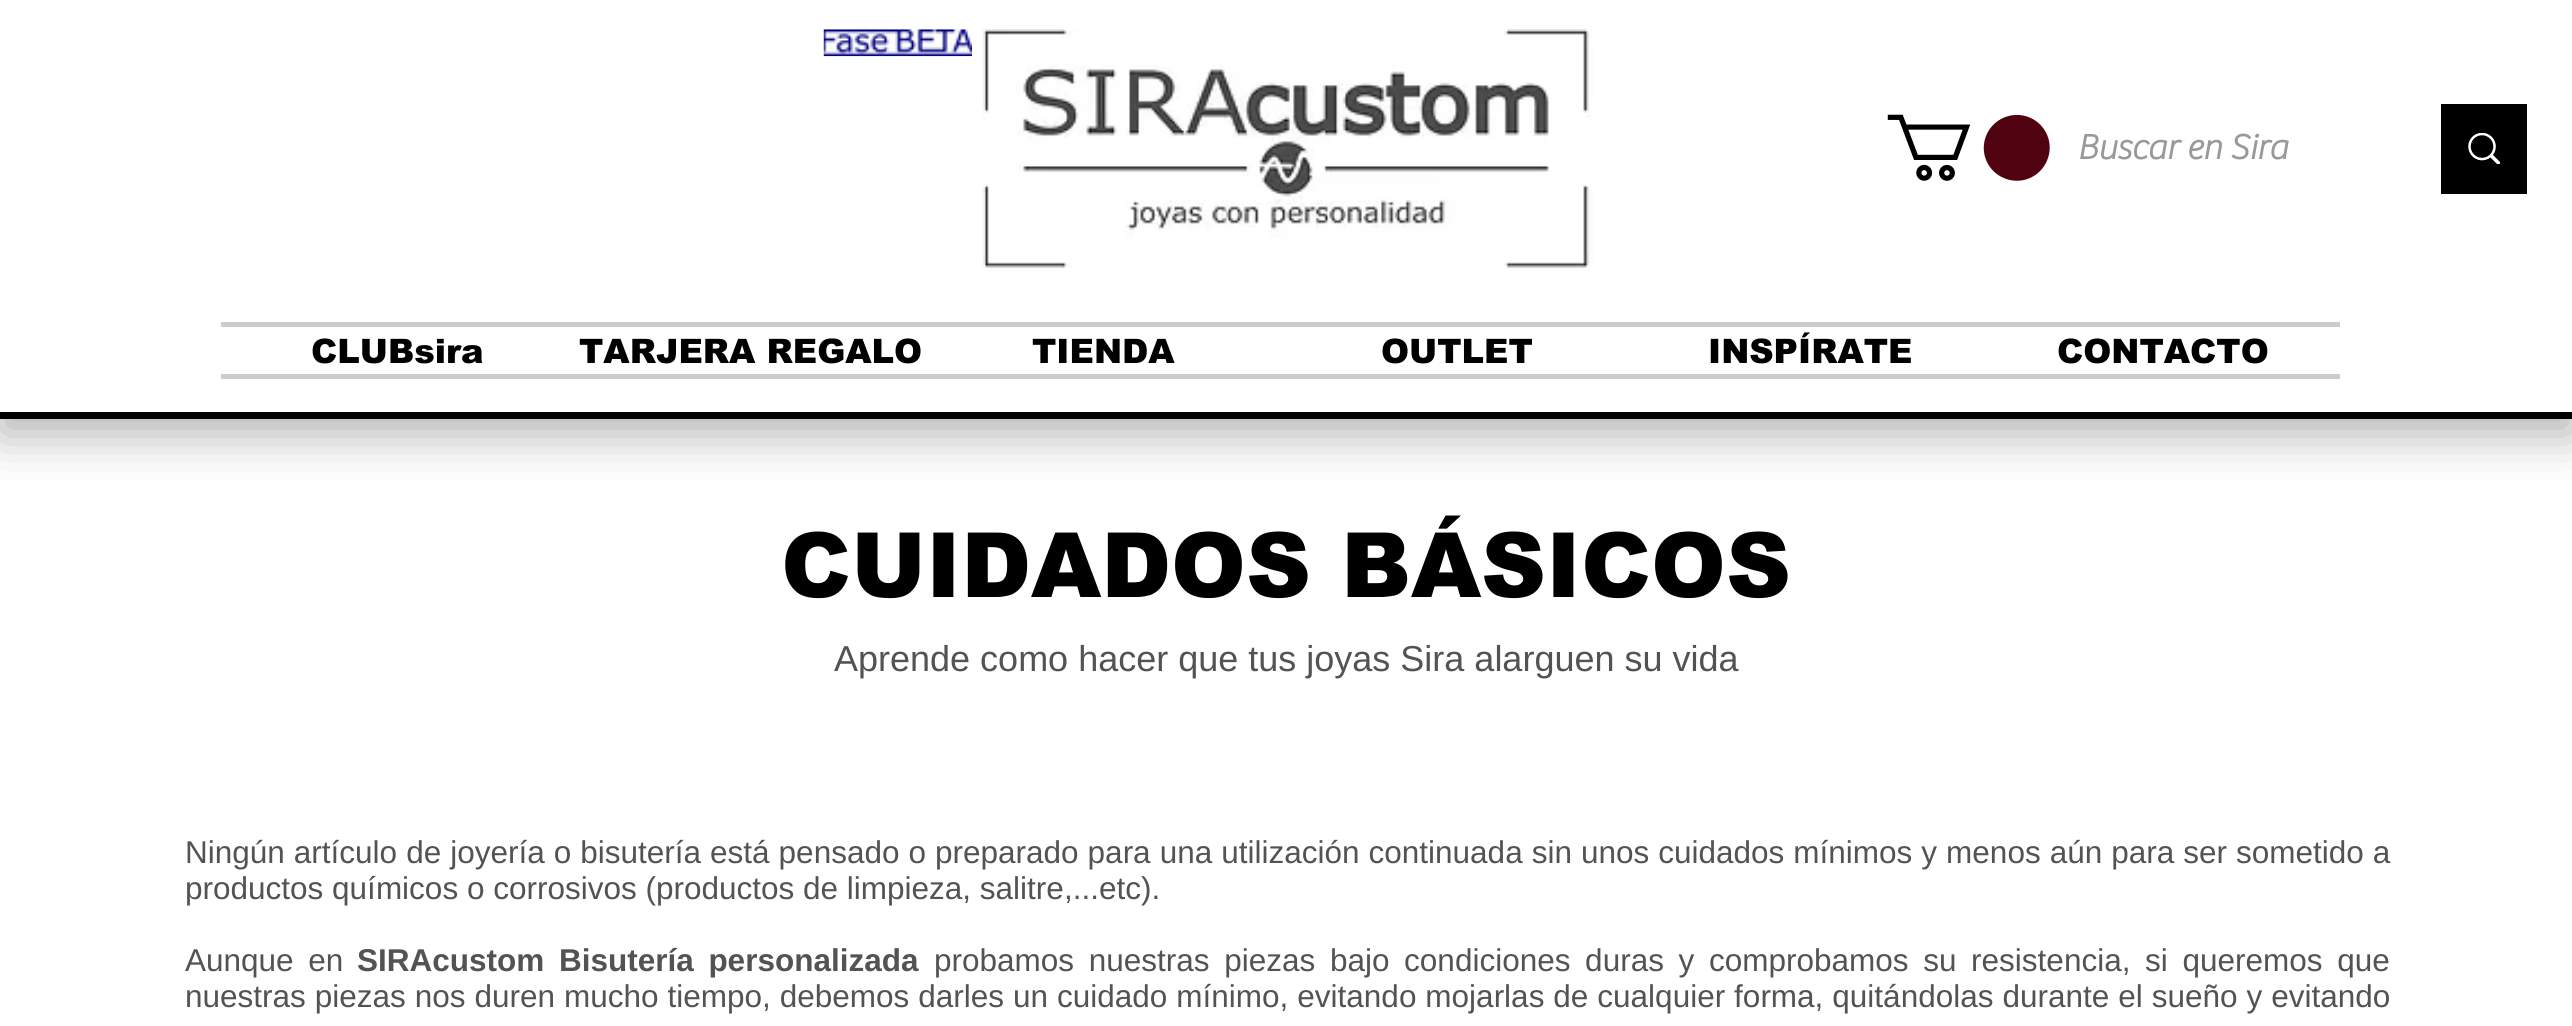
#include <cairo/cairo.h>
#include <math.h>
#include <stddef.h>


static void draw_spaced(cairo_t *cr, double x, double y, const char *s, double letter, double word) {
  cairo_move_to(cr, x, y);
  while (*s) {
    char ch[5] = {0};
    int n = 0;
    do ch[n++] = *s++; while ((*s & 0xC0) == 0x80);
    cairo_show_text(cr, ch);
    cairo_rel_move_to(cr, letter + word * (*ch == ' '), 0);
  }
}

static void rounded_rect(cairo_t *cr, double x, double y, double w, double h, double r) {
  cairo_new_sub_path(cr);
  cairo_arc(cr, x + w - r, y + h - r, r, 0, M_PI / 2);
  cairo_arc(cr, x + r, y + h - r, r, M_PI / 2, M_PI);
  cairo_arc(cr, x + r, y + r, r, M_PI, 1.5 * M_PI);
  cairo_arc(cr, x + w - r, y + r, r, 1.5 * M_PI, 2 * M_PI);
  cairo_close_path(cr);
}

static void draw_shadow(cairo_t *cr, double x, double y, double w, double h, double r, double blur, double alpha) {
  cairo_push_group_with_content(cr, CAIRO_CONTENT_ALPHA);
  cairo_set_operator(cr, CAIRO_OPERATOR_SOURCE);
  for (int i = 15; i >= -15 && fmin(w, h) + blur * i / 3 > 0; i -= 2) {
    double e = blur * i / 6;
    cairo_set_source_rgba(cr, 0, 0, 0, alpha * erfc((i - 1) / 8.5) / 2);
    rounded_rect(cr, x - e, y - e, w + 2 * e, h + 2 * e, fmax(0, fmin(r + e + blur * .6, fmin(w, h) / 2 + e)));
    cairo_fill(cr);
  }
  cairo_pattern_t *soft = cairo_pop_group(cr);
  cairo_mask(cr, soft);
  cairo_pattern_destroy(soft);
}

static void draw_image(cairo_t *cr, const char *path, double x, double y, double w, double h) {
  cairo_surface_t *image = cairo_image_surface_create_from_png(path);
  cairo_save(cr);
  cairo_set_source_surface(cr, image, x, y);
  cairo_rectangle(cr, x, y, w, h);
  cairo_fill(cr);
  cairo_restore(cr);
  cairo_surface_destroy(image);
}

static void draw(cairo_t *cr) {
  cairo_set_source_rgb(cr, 1, 1, 1);
  cairo_paint(cr);
  cairo_set_source_rgb(cr, 0, 0, 0);
  draw_shadow(cr, 0, 16, 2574, 418, 0, 25, 0.31);
  cairo_set_source_rgb(cr, 1, 1, 1);
  cairo_rectangle(cr, 0, 0, 2572, 412);
  cairo_fill(cr);
  cairo_set_source_rgb(cr, 0, 0, 0);
  cairo_rectangle(cr, 0, 412, 2572, 7);
  cairo_fill(cr);
  draw_image(cr, "images/1.png", 823, 29, 149, 28);
  draw_image(cr, "images/2.png", 982, 29, 611, 239);
  draw_image(cr, "images/3.png", 1887, 114, 163, 67);
  cairo_rectangle(cr, 2441, 104, 86, 90);
  cairo_fill(cr);
  draw_image(cr, "images/4.png", 2468, 133, 32, 31);
  cairo_set_source_rgb(cr, 204 / 255.0, 204 / 255.0, 204 / 255.0);
  cairo_rectangle(cr, 221, 322, 2119, 5);
  cairo_fill(cr);
  cairo_rectangle(cr, 221, 374, 2119, 5);
  cairo_fill(cr);
  cairo_select_font_face(cr, "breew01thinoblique", CAIRO_FONT_SLANT_NORMAL, CAIRO_FONT_WEIGHT_BOLD);
  cairo_set_font_size(cr, 36);
  cairo_set_source_rgb(cr, 153 / 255.0, 153 / 255.0, 153 / 255.0);
  cairo_move_to(cr, 2077, 159);
  cairo_show_text(cr, "Buscar en Sira");
  cairo_select_font_face(cr, "arial Black", CAIRO_FONT_SLANT_NORMAL, CAIRO_FONT_WEIGHT_NORMAL);
  cairo_set_font_size(cr, 33.75);
  cairo_set_source_rgb(cr, 0, 0, 0);
  cairo_move_to(cr, 311, 363);
  cairo_show_text(cr, "CLUBsira");
  cairo_move_to(cr, 579, 363);
  cairo_show_text(cr, "TARJERA REGALO");
  cairo_move_to(cr, 1032, 363);
  cairo_show_text(cr, "TIENDA");
  cairo_move_to(cr, 1381, 363);
  cairo_show_text(cr, "OUTLET");
  cairo_move_to(cr, 1708, 363);
  cairo_show_text(cr, "INSPÍRATE");
  cairo_move_to(cr, 2057, 363);
  cairo_show_text(cr, "CONTACTO");
  cairo_set_font_size(cr, 90);
  cairo_move_to(cr, 781, 597);
  cairo_show_text(cr, "CUIDADOS BÁSICOS");
  cairo_select_font_face(cr, "Liberation Sans", CAIRO_FONT_SLANT_NORMAL, CAIRO_FONT_WEIGHT_NORMAL);
  cairo_set_font_size(cr, 36);
  cairo_set_source_rgb(cr, 83 / 255.0, 83 / 255.0, 83 / 255.0);
  cairo_move_to(cr, 834, 671);
  cairo_show_text(cr, "Aprende como hacer que tus joyas Sira alarguen su vida");
  cairo_set_font_size(cr, 31.5);
  draw_spaced(cr, 185, 863, "Ningún artículo de joyería o bisutería está pensado o preparado para una utilización continuada sin unos cuidados mínimos y menos aún para ser sometido a", 0, 0.25);
  cairo_move_to(cr, 185, 899);
  cairo_show_text(cr, "productos químicos o corrosivos (productos de limpieza, salitre,...etc).");
  draw_spaced(cr, 185, 971, "Aunque en", 0, 5.9);
  cairo_select_font_face(cr, "Liberation Sans", CAIRO_FONT_SLANT_NORMAL, CAIRO_FONT_WEIGHT_BOLD);
  draw_spaced(cr, 357, 971, "SIRAcustom Bisutería personalizada", 0, 5.9);
  cairo_select_font_face(cr, "Liberation Sans", CAIRO_FONT_SLANT_NORMAL, CAIRO_FONT_WEIGHT_NORMAL);
  draw_spaced(cr, 934, 971, "probamos nuestras piezas bajo condiciones duras y comprobamos su resistencia, si queremos que", 0, 5.9);
  draw_spaced(cr, 185, 1007, "nuestras piezas nos duren mucho tiempo, debemos darles un cuidado mínimo, evitando mojarlas de cualquier forma, quitándolas durante el sueño y evitando", 0, 0.2);
}

int main(void) {
  cairo_surface_t *surface = cairo_image_surface_create(CAIRO_FORMAT_RGB24, 2572, 1026);
  cairo_t *cr = cairo_create(surface);
  cairo_font_options_t *options = cairo_font_options_create();
  cairo_font_options_set_hint_metrics(options, CAIRO_HINT_METRICS_OFF);
  cairo_font_options_set_hint_style(options, CAIRO_HINT_STYLE_NONE);
  cairo_set_font_options(cr, options);
  cairo_set_miter_limit(cr, 4);
  draw(cr);
  cairo_surface_write_to_png(surface, "out.png");
  cairo_font_options_destroy(options);
  cairo_destroy(cr);
  cairo_surface_destroy(surface);
  return 0;
}
